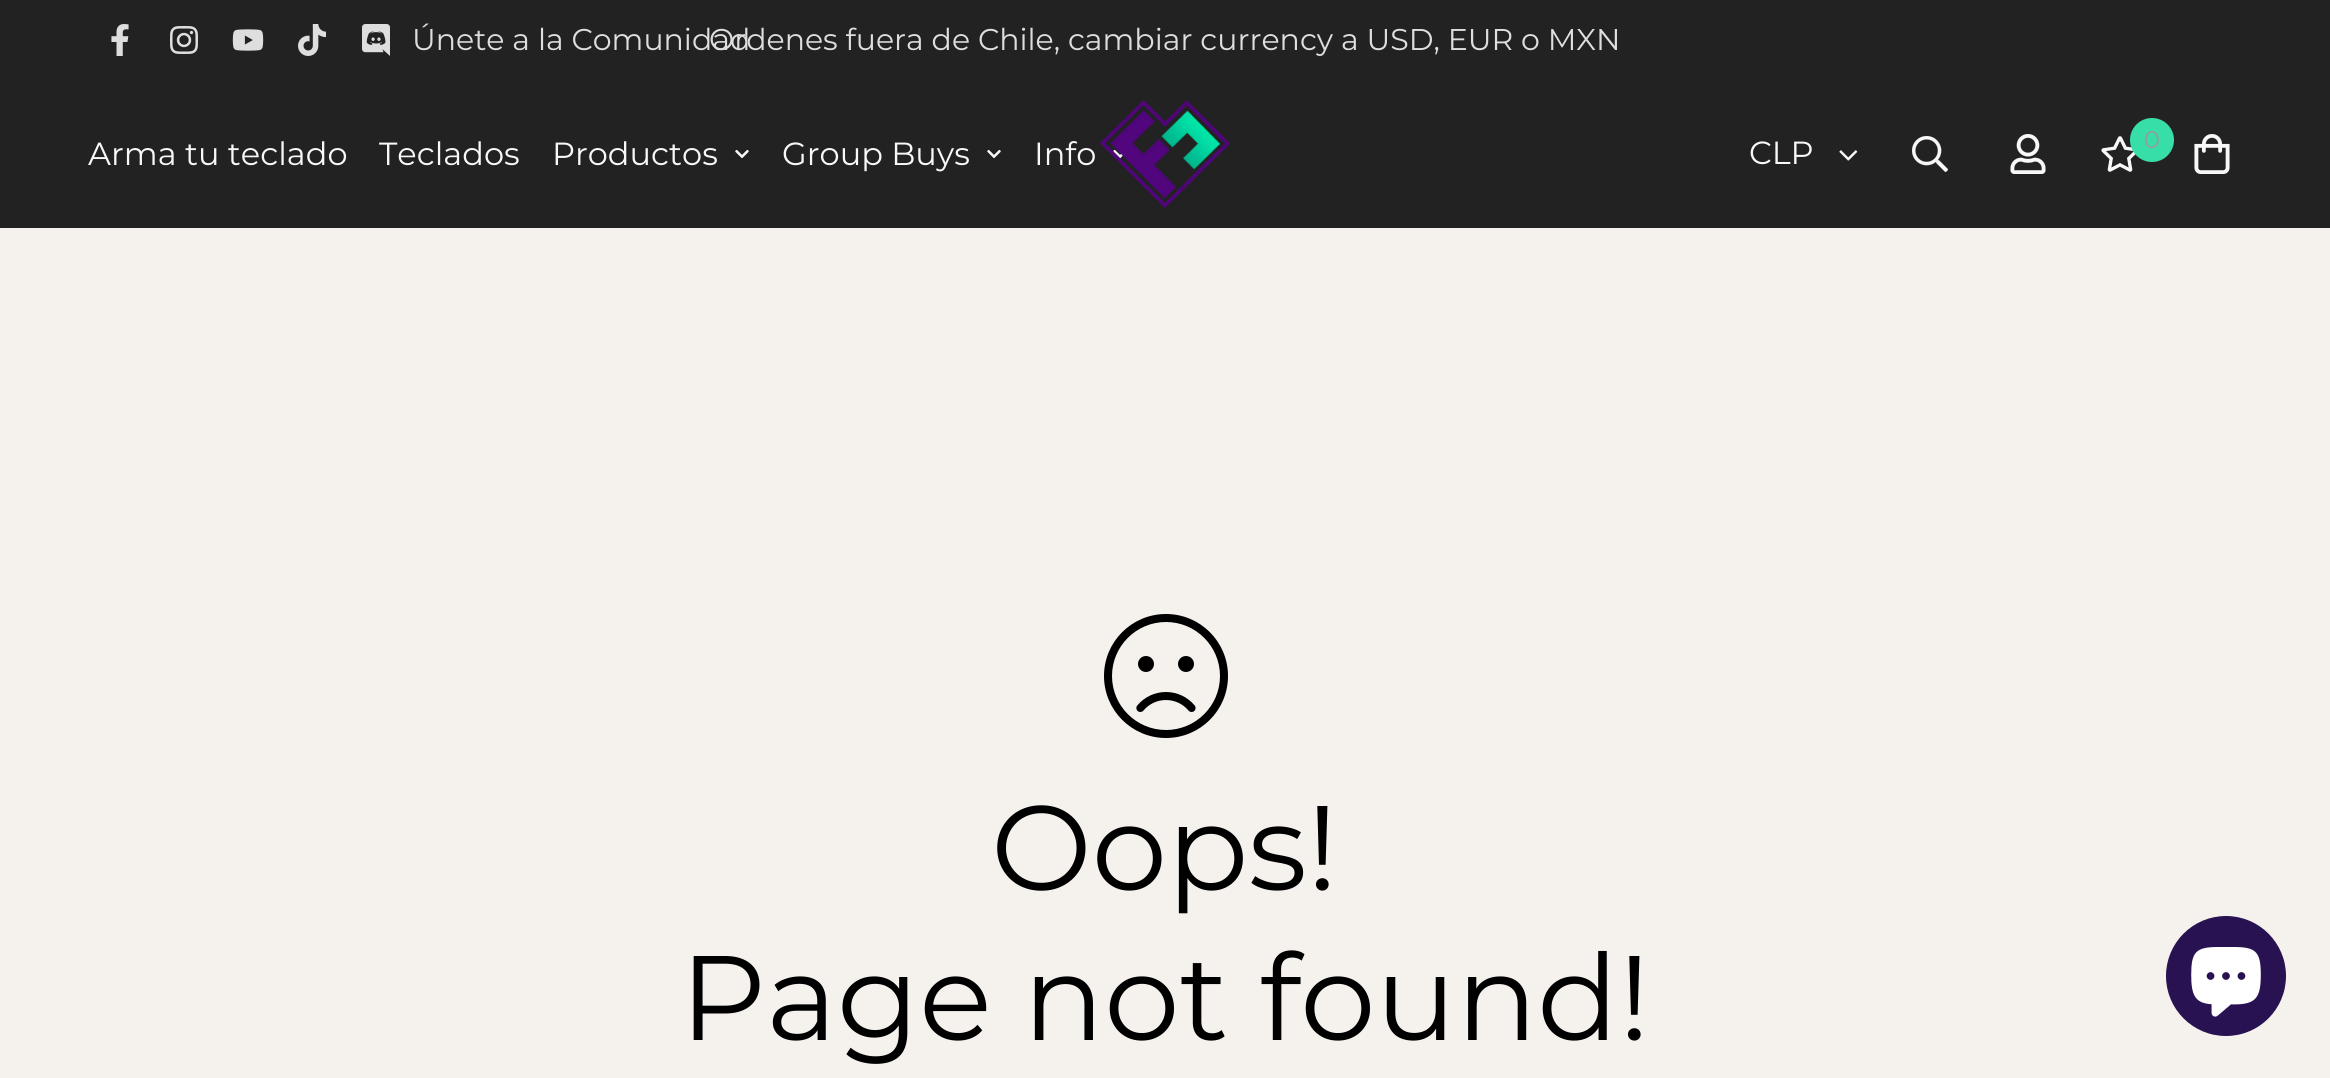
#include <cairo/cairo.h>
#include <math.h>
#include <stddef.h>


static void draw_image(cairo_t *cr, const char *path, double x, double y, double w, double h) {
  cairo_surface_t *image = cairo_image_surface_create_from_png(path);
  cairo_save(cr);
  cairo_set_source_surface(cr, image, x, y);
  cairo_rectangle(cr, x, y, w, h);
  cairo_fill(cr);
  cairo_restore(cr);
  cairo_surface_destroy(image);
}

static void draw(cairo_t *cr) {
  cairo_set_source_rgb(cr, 245 / 255.0, 241 / 255.0, 237 / 255.0);
  cairo_paint(cr);
  cairo_set_source_rgb(cr, 34 / 255.0, 34 / 255.0, 34 / 255.0);
  cairo_rectangle(cr, 0, 0, 2330, 228);
  cairo_fill(cr);
  draw_image(cr, "images/1.png", 111, 24, 18, 32);
  draw_image(cr, "images/2.png", 170, 26, 28, 28);
  draw_image(cr, "images/3.png", 232, 29, 32, 22);
  draw_image(cr, "images/4.png", 298, 24, 28, 32);
  draw_image(cr, "images/5.png", 362, 24, 28, 32);
  draw_image(cr, "images/6.png", 735, 149, 14, 10);
  draw_image(cr, "images/6.png", 987, 149, 14, 10);
  draw_image(cr, "images/7.png", 1113, 149, 12, 10);
  draw_image(cr, "images/8.png", 1100, 100, 130, 108);
  draw_image(cr, "images/9.png", 1839, 150, 19, 11);
  draw_image(cr, "images/10.png", 1912, 136, 36, 36);
  draw_image(cr, "images/11.png", 2010, 134, 36, 40);
  draw_image(cr, "images/12.png", 2101, 136, 35, 36);
  cairo_set_source_rgb(cr, 55 / 255.0, 222 / 255.0, 168 / 255.0);
  cairo_arc(cr, 2152, 140, 22, 0, 2 * M_PI);
  cairo_fill(cr);
  draw_image(cr, "images/13.png", 2194, 134, 36, 40);
  draw_image(cr, "images/14.png", 1104, 614, 124, 124);
  cairo_set_source_rgb(cr, 40 / 255.0, 18 / 255.0, 82 / 255.0);
  cairo_arc(cr, 2226, 976, 60, 0, 2 * M_PI);
  cairo_fill(cr);
  draw_image(cr, "images/15.png", 2191, 947, 70, 70);
  cairo_select_font_face(cr, "Montserrat", CAIRO_FONT_SLANT_NORMAL, CAIRO_FONT_WEIGHT_NORMAL);
  cairo_set_font_size(cr, 30);
  cairo_set_source_rgb(cr, 222 / 255.0, 222 / 255.0, 222 / 255.0);
  cairo_move_to(cr, 412, 50);
  cairo_show_text(cr, "Únete a la Comunidad");
  cairo_move_to(cr, 709, 50);
  cairo_show_text(cr, "Ordenes fuera de Chile, cambiar currency a USD, EUR o MXN");
  cairo_set_font_size(cr, 32);
  cairo_set_source_rgb(cr, 248 / 255.0, 248 / 255.0, 248 / 255.0);
  cairo_move_to(cr, 88, 165);
  cairo_show_text(cr, "Arma tu teclado");
  cairo_move_to(cr, 379, 165);
  cairo_show_text(cr, "Teclados");
  cairo_move_to(cr, 552, 165);
  cairo_show_text(cr, "Productos");
  cairo_move_to(cr, 782, 165);
  cairo_show_text(cr, "Group Buys");
  cairo_move_to(cr, 1034, 165);
  cairo_show_text(cr, "Info");
  cairo_move_to(cr, 1749, 164);
  cairo_show_text(cr, "CLP");
  cairo_set_font_size(cr, 24);
  cairo_set_source_rgb(cr, 153 / 255.0, 153 / 255.0, 153 / 255.0);
  cairo_move_to(cr, 2144, 148);
  cairo_show_text(cr, "0");
  cairo_set_font_size(cr, 120);
  cairo_set_source_rgb(cr, 0, 0, 0);
  cairo_move_to(cr, 991, 890);
  cairo_show_text(cr, "Oops!");
  cairo_move_to(cr, 680, 1040);
  cairo_show_text(cr, "Page not found!");
}

int main(void) {
  cairo_surface_t *surface = cairo_image_surface_create(CAIRO_FORMAT_RGB24, 2330, 1078);
  cairo_t *cr = cairo_create(surface);
  cairo_font_options_t *options = cairo_font_options_create();
  cairo_font_options_set_hint_metrics(options, CAIRO_HINT_METRICS_OFF);
  cairo_font_options_set_hint_style(options, CAIRO_HINT_STYLE_NONE);
  cairo_set_font_options(cr, options);
  cairo_set_miter_limit(cr, 4);
  draw(cr);
  cairo_surface_write_to_png(surface, "out.png");
  cairo_font_options_destroy(options);
  cairo_destroy(cr);
  cairo_surface_destroy(surface);
  return 0;
}
